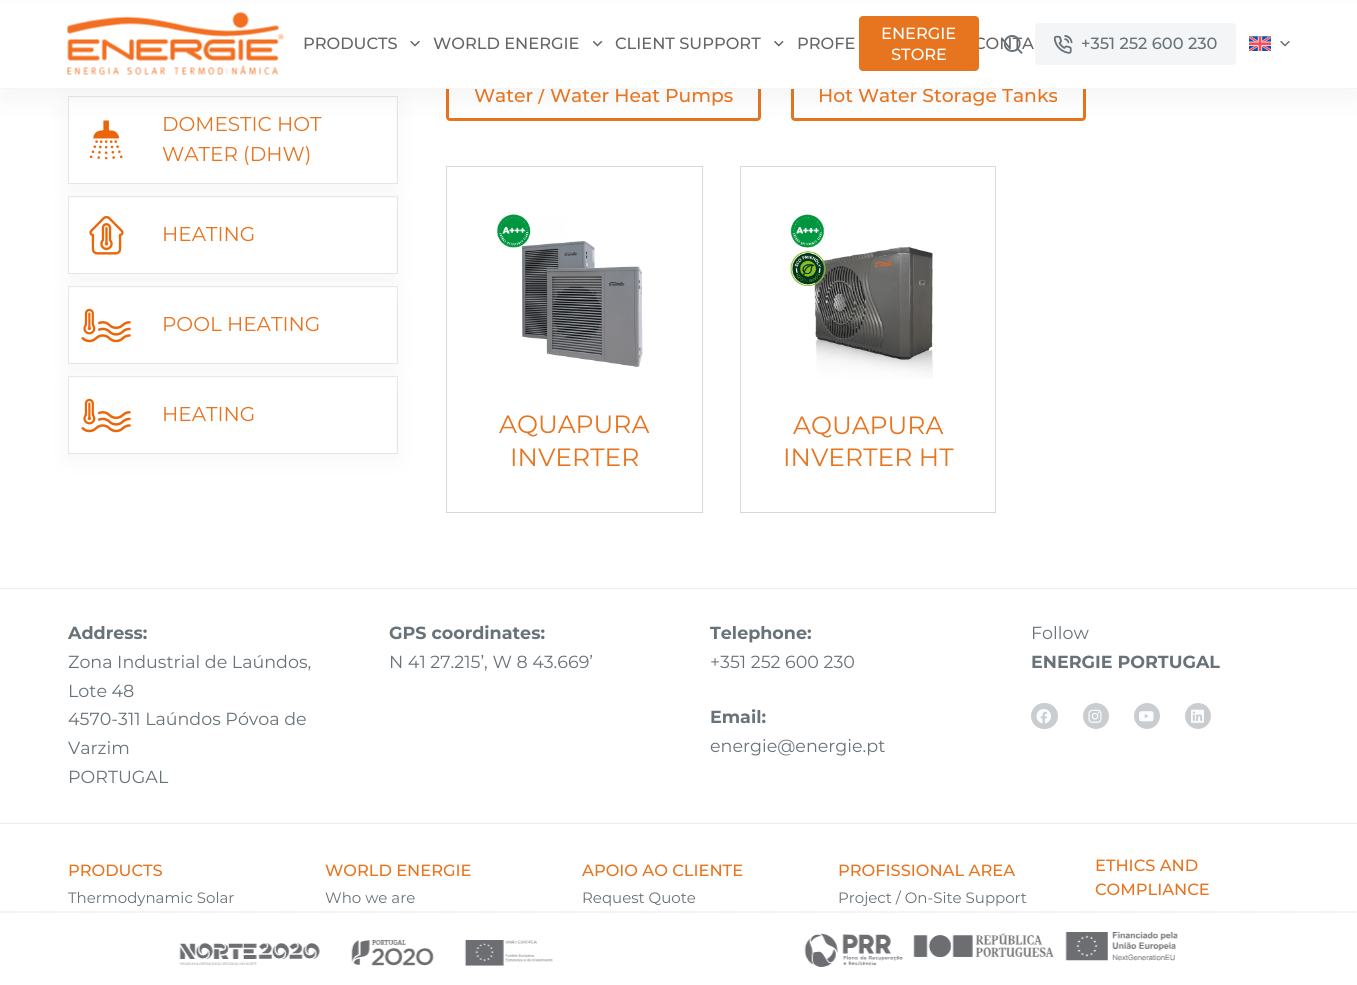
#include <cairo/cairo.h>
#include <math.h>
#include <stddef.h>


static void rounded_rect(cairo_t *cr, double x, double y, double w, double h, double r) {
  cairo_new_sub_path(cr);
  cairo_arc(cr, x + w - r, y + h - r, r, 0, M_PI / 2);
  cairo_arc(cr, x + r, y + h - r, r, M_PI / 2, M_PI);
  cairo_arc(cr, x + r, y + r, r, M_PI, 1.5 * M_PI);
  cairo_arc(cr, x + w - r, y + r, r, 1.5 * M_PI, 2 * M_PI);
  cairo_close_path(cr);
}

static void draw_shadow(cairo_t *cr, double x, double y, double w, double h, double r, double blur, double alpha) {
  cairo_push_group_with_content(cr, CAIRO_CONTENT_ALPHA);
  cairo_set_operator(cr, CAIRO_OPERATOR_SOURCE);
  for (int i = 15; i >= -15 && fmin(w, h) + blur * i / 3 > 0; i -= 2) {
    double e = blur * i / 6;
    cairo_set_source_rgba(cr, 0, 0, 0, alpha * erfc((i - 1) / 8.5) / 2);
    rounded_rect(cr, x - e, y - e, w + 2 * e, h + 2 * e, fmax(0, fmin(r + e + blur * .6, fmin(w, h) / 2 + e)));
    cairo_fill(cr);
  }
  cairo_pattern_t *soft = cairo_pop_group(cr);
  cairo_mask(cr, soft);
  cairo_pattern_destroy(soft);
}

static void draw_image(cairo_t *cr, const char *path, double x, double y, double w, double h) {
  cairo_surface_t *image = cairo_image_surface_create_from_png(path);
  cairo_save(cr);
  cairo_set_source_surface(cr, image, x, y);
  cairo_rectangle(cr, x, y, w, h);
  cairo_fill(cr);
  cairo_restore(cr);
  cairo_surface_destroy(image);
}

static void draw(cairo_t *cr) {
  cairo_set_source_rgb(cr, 1, 1, 1);
  cairo_paint(cr);
  cairo_rectangle(cr, 68.5, 96.5, 329, 87);
  cairo_set_source_rgb(cr, 233 / 255.0, 235 / 255.0, 236 / 255.0);
  cairo_set_line_width(cr, 1);
  cairo_stroke(cr);
  cairo_set_source_rgb(cr, 0, 0, 0);
  draw_shadow(cr, 69, 103, 327, 85, 0, 15, 0.04);
  cairo_set_source_rgb(cr, 1, 1, 1);
  cairo_rectangle(cr, 69, 98, 327, 85);
  cairo_fill(cr);
  draw_image(cr, "images/9.png", 89, 120, 34, 40);
  rounded_rect(cr, 447.5, 72.5, 312, 47, 2.5);
  cairo_set_source_rgb(cr, 231 / 255.0, 116 / 255.0, 30 / 255.0);
  cairo_set_line_width(cr, 3);
  cairo_stroke(cr);
  rounded_rect(cr, 792.5, 72.5, 292, 47, 2.5);
  cairo_stroke(cr);
  cairo_set_source_rgb(cr, 44 / 255.0, 62 / 255.0, 80 / 255.0);
  draw_shadow(cr, 0, 13, 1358, 88, 0, 12.5, 0.05);
  cairo_rectangle(cr, 68.5, 196.5, 329, 77);
  cairo_set_source_rgb(cr, 233 / 255.0, 235 / 255.0, 236 / 255.0);
  cairo_set_line_width(cr, 1);
  cairo_stroke(cr);
  cairo_set_source_rgb(cr, 0, 0, 0);
  draw_shadow(cr, 69, 203, 327, 75, 0, 15, 0.04);
  cairo_set_source_rgb(cr, 1, 1, 1);
  cairo_rectangle(cr, 69, 198, 327, 75);
  cairo_fill(cr);
  draw_image(cr, "images/10.png", 89, 216, 35, 39);
  cairo_rectangle(cr, 68.5, 286.5, 329, 77);
  cairo_set_source_rgb(cr, 233 / 255.0, 235 / 255.0, 236 / 255.0);
  cairo_stroke(cr);
  cairo_set_source_rgb(cr, 0, 0, 0);
  draw_shadow(cr, 69, 293, 327, 75, 0, 15, 0.04);
  cairo_set_source_rgb(cr, 1, 1, 1);
  cairo_rectangle(cr, 69, 288, 327, 75);
  cairo_fill(cr);
  draw_image(cr, "images/11.png", 81, 308, 50, 35);
  cairo_rectangle(cr, 68.5, 376.5, 329, 77);
  cairo_set_source_rgb(cr, 233 / 255.0, 235 / 255.0, 236 / 255.0);
  cairo_stroke(cr);
  cairo_set_source_rgb(cr, 0, 0, 0);
  draw_shadow(cr, 69, 383, 327, 75, 0, 15, 0.04);
  cairo_set_source_rgb(cr, 1, 1, 1);
  cairo_rectangle(cr, 69, 378, 327, 75);
  cairo_fill(cr);
  draw_image(cr, "images/11.png", 81, 398, 50, 35);
  cairo_rectangle(cr, 446.5, 166.5, 256, 346);
  cairo_set_source_rgb(cr, 213 / 255.0, 216 / 255.0, 220 / 255.0);
  cairo_stroke(cr);
  draw_image(cr, "images/12.png", 497, 214, 146, 153);
  cairo_rectangle(cr, 740.5, 166.5, 255, 346);
  cairo_stroke(cr);
  draw_image(cr, "images/13.png", 790, 214, 143, 165);
  cairo_set_source_rgb(cr, 233 / 255.0, 235 / 255.0, 236 / 255.0);
  cairo_rectangle(cr, 0, 588, 1357, 1);
  cairo_fill(cr);
  cairo_set_source_rgb(cr, 202 / 255.0, 205 / 255.0, 208 / 255.0);
  rounded_rect(cr, 1031, 703, 27, 26, 13);
  cairo_fill(cr);
  draw_image(cr, "images/14.png", 1036, 709, 15, 15);
  cairo_arc(cr, 1096, 716, 13, 0, 2 * M_PI);
  cairo_fill(cr);
  draw_image(cr, "images/15.png", 1088, 709, 14, 14);
  cairo_arc(cr, 1147, 716, 13, 0, 2 * M_PI);
  cairo_fill(cr);
  draw_image(cr, "images/16.png", 1139, 711, 15, 11);
  cairo_arc(cr, 1198, 716, 13, 0, 2 * M_PI);
  cairo_fill(cr);
  draw_image(cr, "images/17.png", 1191, 709, 13, 14);
  cairo_set_source_rgb(cr, 233 / 255.0, 235 / 255.0, 236 / 255.0);
  cairo_rectangle(cr, 0, 823, 1357, 1);
  cairo_fill(cr);
  cairo_new_path(cr);
  cairo_move_to(cr, 0, 912);
  cairo_line_to(cr, 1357.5, 912);
  cairo_set_source_rgb(cr, 221 / 255.0, 221 / 255.0, 221 / 255.0);
  cairo_set_line_width(cr, 1.2);
  cairo_set_dash(cr, (double[]){1.25, 1.25}, 2, 0);
  cairo_stroke(cr);
  draw_image(cr, "images/18.png", 179, 940, 374, 26);
  draw_image(cr, "images/19.png", 804, 932, 374, 35);
  cairo_select_font_face(cr, "Montserrat", CAIRO_FONT_SLANT_NORMAL, CAIRO_FONT_WEIGHT_NORMAL);
  cairo_set_font_size(cr, 20);
  cairo_set_source_rgb(cr, 231 / 255.0, 116 / 255.0, 30 / 255.0);
  cairo_move_to(cr, 162, 131);
  cairo_show_text(cr, "DOMESTIC HOT");
  cairo_move_to(cr, 162, 161);
  cairo_show_text(cr, "WATER (DHW)");
  cairo_move_to(cr, 162, 241);
  cairo_show_text(cr, "HEATING");
  cairo_move_to(cr, 162, 331);
  cairo_show_text(cr, "POOL HEATING");
  cairo_move_to(cr, 162, 421);
  cairo_show_text(cr, "HEATING");
  cairo_select_font_face(cr, "Montserrat Medium", CAIRO_FONT_SLANT_NORMAL, CAIRO_FONT_WEIGHT_NORMAL);
  cairo_set_font_size(cr, 18.75);
  cairo_move_to(cr, 474, 102);
  cairo_show_text(cr, "Water / Water Heat Pumps");
  cairo_set_source_rgb(cr, 1, 1, 1);
  cairo_rectangle(cr, 0, 5, 1357, 83);
  cairo_fill(cr);
  draw_image(cr, "images/8.png", 1280, 41, 10, 6);
  draw_image(cr, "images/7.png", 1249, 36, 22, 15);
  cairo_set_source_rgb(cr, 244 / 255.0, 245 / 255.0, 246 / 255.0);
  rounded_rect(cr, 1035, 23, 201, 42, 4);
  cairo_fill(cr);
  draw_image(cr, "images/6.png", 1054, 35, 19, 19);
  cairo_set_font_size(cr, 16.25);
  cairo_set_source_rgb(cr, 104 / 255.0, 114 / 255.0, 121 / 255.0);
  cairo_move_to(cr, 1081, 49);
  cairo_show_text(cr, "+351 252 600 230");
  cairo_set_source_rgb(cr, 102 / 255.0, 102 / 255.0, 102 / 255.0);
  cairo_move_to(cr, 974, 49);
  cairo_show_text(cr, "CONTA");
  draw_image(cr, "images/5.png", 1004, 35, 19, 19);
  cairo_set_source_rgb(cr, 231 / 255.0, 116 / 255.0, 30 / 255.0);
  rounded_rect(cr, 859, 16, 120, 55, 4);
  cairo_fill(cr);
  cairo_set_source_rgb(cr, 1, 1, 1);
  cairo_move_to(cr, 891, 60);
  cairo_show_text(cr, "STORE");
  cairo_move_to(cr, 881, 39);
  cairo_show_text(cr, "ENERGIE");
  cairo_set_source_rgb(cr, 102 / 255.0, 102 / 255.0, 102 / 255.0);
  cairo_move_to(cr, 797, 49);
  cairo_show_text(cr, "PROFE");
  draw_image(cr, "images/4.png", 774, 41, 10, 6);
  cairo_move_to(cr, 615, 49);
  cairo_show_text(cr, "CLIENT SUPPORT");
  draw_image(cr, "images/3.png", 593, 41, 10, 6);
  cairo_move_to(cr, 433, 49);
  cairo_show_text(cr, "WORLD ENERGIE");
  draw_image(cr, "images/2.png", 410, 41, 10, 6);
  cairo_move_to(cr, 303, 49);
  cairo_show_text(cr, "PRODUCTS");
  draw_image(cr, "images/1.png", 67, 12, 217, 63);
  cairo_set_font_size(cr, 18.75);
  cairo_set_source_rgb(cr, 231 / 255.0, 116 / 255.0, 30 / 255.0);
  cairo_move_to(cr, 818, 102);
  cairo_show_text(cr, "Hot Water Storage Tanks");
  cairo_set_source_rgb(cr, 244 / 255.0, 245 / 255.0, 246 / 255.0);
  cairo_rectangle(cr, 0, 88, 1357, 1);
  cairo_fill(cr);
  cairo_select_font_face(cr, "Montserrat", CAIRO_FONT_SLANT_NORMAL, CAIRO_FONT_WEIGHT_NORMAL);
  cairo_set_font_size(cr, 25);
  cairo_set_source_rgb(cr, 231 / 255.0, 116 / 255.0, 30 / 255.0);
  cairo_move_to(cr, 499, 433);
  cairo_show_text(cr, "AQUAPURA");
  cairo_move_to(cr, 510, 466);
  cairo_show_text(cr, "INVERTER");
  cairo_move_to(cr, 793, 434);
  cairo_show_text(cr, "AQUAPURA");
  cairo_move_to(cr, 783, 466);
  cairo_show_text(cr, "INVERTER HT");
  cairo_select_font_face(cr, "Montserrat", CAIRO_FONT_SLANT_NORMAL, CAIRO_FONT_WEIGHT_BOLD);
  cairo_set_font_size(cr, 17.5);
  cairo_set_source_rgb(cr, 104 / 255.0, 114 / 255.0, 121 / 255.0);
  cairo_move_to(cr, 68, 639);
  cairo_show_text(cr, "Address:");
  cairo_select_font_face(cr, "Montserrat", CAIRO_FONT_SLANT_NORMAL, CAIRO_FONT_WEIGHT_NORMAL);
  cairo_move_to(cr, 68, 668);
  cairo_show_text(cr, "Zona Industrial de Laúndos,");
  cairo_move_to(cr, 68, 697);
  cairo_show_text(cr, "Lote 48");
  cairo_move_to(cr, 68, 725);
  cairo_show_text(cr, "4570-311 Laúndos Póvoa de");
  cairo_move_to(cr, 68, 754);
  cairo_show_text(cr, "Varzim");
  cairo_move_to(cr, 68, 783);
  cairo_show_text(cr, "PORTUGAL");
  cairo_select_font_face(cr, "Montserrat", CAIRO_FONT_SLANT_NORMAL, CAIRO_FONT_WEIGHT_BOLD);
  cairo_move_to(cr, 389, 639);
  cairo_show_text(cr, "GPS coordinates:");
  cairo_select_font_face(cr, "Montserrat", CAIRO_FONT_SLANT_NORMAL, CAIRO_FONT_WEIGHT_NORMAL);
  cairo_move_to(cr, 389, 668);
  cairo_show_text(cr, "N 41 27.215’, W 8 43.669’");
  cairo_select_font_face(cr, "Montserrat", CAIRO_FONT_SLANT_NORMAL, CAIRO_FONT_WEIGHT_BOLD);
  cairo_move_to(cr, 710, 639);
  cairo_show_text(cr, "Telephone:");
  cairo_select_font_face(cr, "Montserrat", CAIRO_FONT_SLANT_NORMAL, CAIRO_FONT_WEIGHT_NORMAL);
  cairo_move_to(cr, 710, 668);
  cairo_show_text(cr, "+351 252 600 230");
  cairo_select_font_face(cr, "Montserrat", CAIRO_FONT_SLANT_NORMAL, CAIRO_FONT_WEIGHT_BOLD);
  cairo_move_to(cr, 710, 723);
  cairo_show_text(cr, "Email:");
  cairo_select_font_face(cr, "Montserrat", CAIRO_FONT_SLANT_NORMAL, CAIRO_FONT_WEIGHT_NORMAL);
  cairo_move_to(cr, 710, 752);
  cairo_show_text(cr, "energie@energie.pt");
  cairo_move_to(cr, 1031, 639);
  cairo_show_text(cr, "Follow");
  cairo_select_font_face(cr, "Montserrat", CAIRO_FONT_SLANT_NORMAL, CAIRO_FONT_WEIGHT_BOLD);
  cairo_move_to(cr, 1031, 668);
  cairo_show_text(cr, "ENERGIE PORTUGAL");
  cairo_select_font_face(cr, "Montserrat Medium", CAIRO_FONT_SLANT_NORMAL, CAIRO_FONT_WEIGHT_NORMAL);
  cairo_set_font_size(cr, 16.25);
  cairo_set_source_rgb(cr, 231 / 255.0, 116 / 255.0, 30 / 255.0);
  cairo_move_to(cr, 68, 876);
  cairo_show_text(cr, "PRODUCTS");
  cairo_select_font_face(cr, "Montserrat", CAIRO_FONT_SLANT_NORMAL, CAIRO_FONT_WEIGHT_NORMAL);
  cairo_set_font_size(cr, 15);
  cairo_set_source_rgb(cr, 104 / 255.0, 114 / 255.0, 121 / 255.0);
  cairo_move_to(cr, 68, 903);
  cairo_show_text(cr, "Thermodynamic Solar");
  cairo_select_font_face(cr, "Montserrat Medium", CAIRO_FONT_SLANT_NORMAL, CAIRO_FONT_WEIGHT_NORMAL);
  cairo_set_font_size(cr, 16.25);
  cairo_set_source_rgb(cr, 231 / 255.0, 116 / 255.0, 30 / 255.0);
  cairo_move_to(cr, 325, 876);
  cairo_show_text(cr, "WORLD ENERGIE");
  cairo_select_font_face(cr, "Montserrat", CAIRO_FONT_SLANT_NORMAL, CAIRO_FONT_WEIGHT_NORMAL);
  cairo_set_font_size(cr, 15);
  cairo_set_source_rgb(cr, 104 / 255.0, 114 / 255.0, 121 / 255.0);
  cairo_move_to(cr, 325, 903);
  cairo_show_text(cr, "Who we are");
  cairo_select_font_face(cr, "Montserrat Medium", CAIRO_FONT_SLANT_NORMAL, CAIRO_FONT_WEIGHT_NORMAL);
  cairo_set_font_size(cr, 16.25);
  cairo_set_source_rgb(cr, 231 / 255.0, 116 / 255.0, 30 / 255.0);
  cairo_move_to(cr, 582, 876);
  cairo_show_text(cr, "APOIO AO CLIENTE");
  cairo_select_font_face(cr, "Montserrat", CAIRO_FONT_SLANT_NORMAL, CAIRO_FONT_WEIGHT_NORMAL);
  cairo_set_font_size(cr, 15);
  cairo_set_source_rgb(cr, 104 / 255.0, 114 / 255.0, 121 / 255.0);
  cairo_move_to(cr, 582, 903);
  cairo_show_text(cr, "Request Quote");
  cairo_select_font_face(cr, "Montserrat Medium", CAIRO_FONT_SLANT_NORMAL, CAIRO_FONT_WEIGHT_NORMAL);
  cairo_set_font_size(cr, 16.25);
  cairo_set_source_rgb(cr, 231 / 255.0, 116 / 255.0, 30 / 255.0);
  cairo_move_to(cr, 838, 876);
  cairo_show_text(cr, "PROFISSIONAL AREA");
  cairo_select_font_face(cr, "Montserrat", CAIRO_FONT_SLANT_NORMAL, CAIRO_FONT_WEIGHT_NORMAL);
  cairo_set_font_size(cr, 15);
  cairo_set_source_rgb(cr, 104 / 255.0, 114 / 255.0, 121 / 255.0);
  cairo_move_to(cr, 838, 903);
  cairo_show_text(cr, "Project / On-Site Support");
  cairo_select_font_face(cr, "Montserrat Medium", CAIRO_FONT_SLANT_NORMAL, CAIRO_FONT_WEIGHT_NORMAL);
  cairo_set_font_size(cr, 16.25);
  cairo_set_source_rgb(cr, 231 / 255.0, 116 / 255.0, 30 / 255.0);
  cairo_move_to(cr, 1095, 871);
  cairo_show_text(cr, "ETHICS AND");
  cairo_move_to(cr, 1095, 895);
  cairo_show_text(cr, "COMPLIANCE");
}

int main(void) {
  cairo_surface_t *surface = cairo_image_surface_create(CAIRO_FORMAT_RGB24, 1357, 985);
  cairo_t *cr = cairo_create(surface);
  cairo_font_options_t *options = cairo_font_options_create();
  cairo_font_options_set_hint_metrics(options, CAIRO_HINT_METRICS_OFF);
  cairo_font_options_set_hint_style(options, CAIRO_HINT_STYLE_NONE);
  cairo_set_font_options(cr, options);
  cairo_set_miter_limit(cr, 4);
  draw(cr);
  cairo_surface_write_to_png(surface, "out.png");
  cairo_font_options_destroy(options);
  cairo_destroy(cr);
  cairo_surface_destroy(surface);
  return 0;
}
